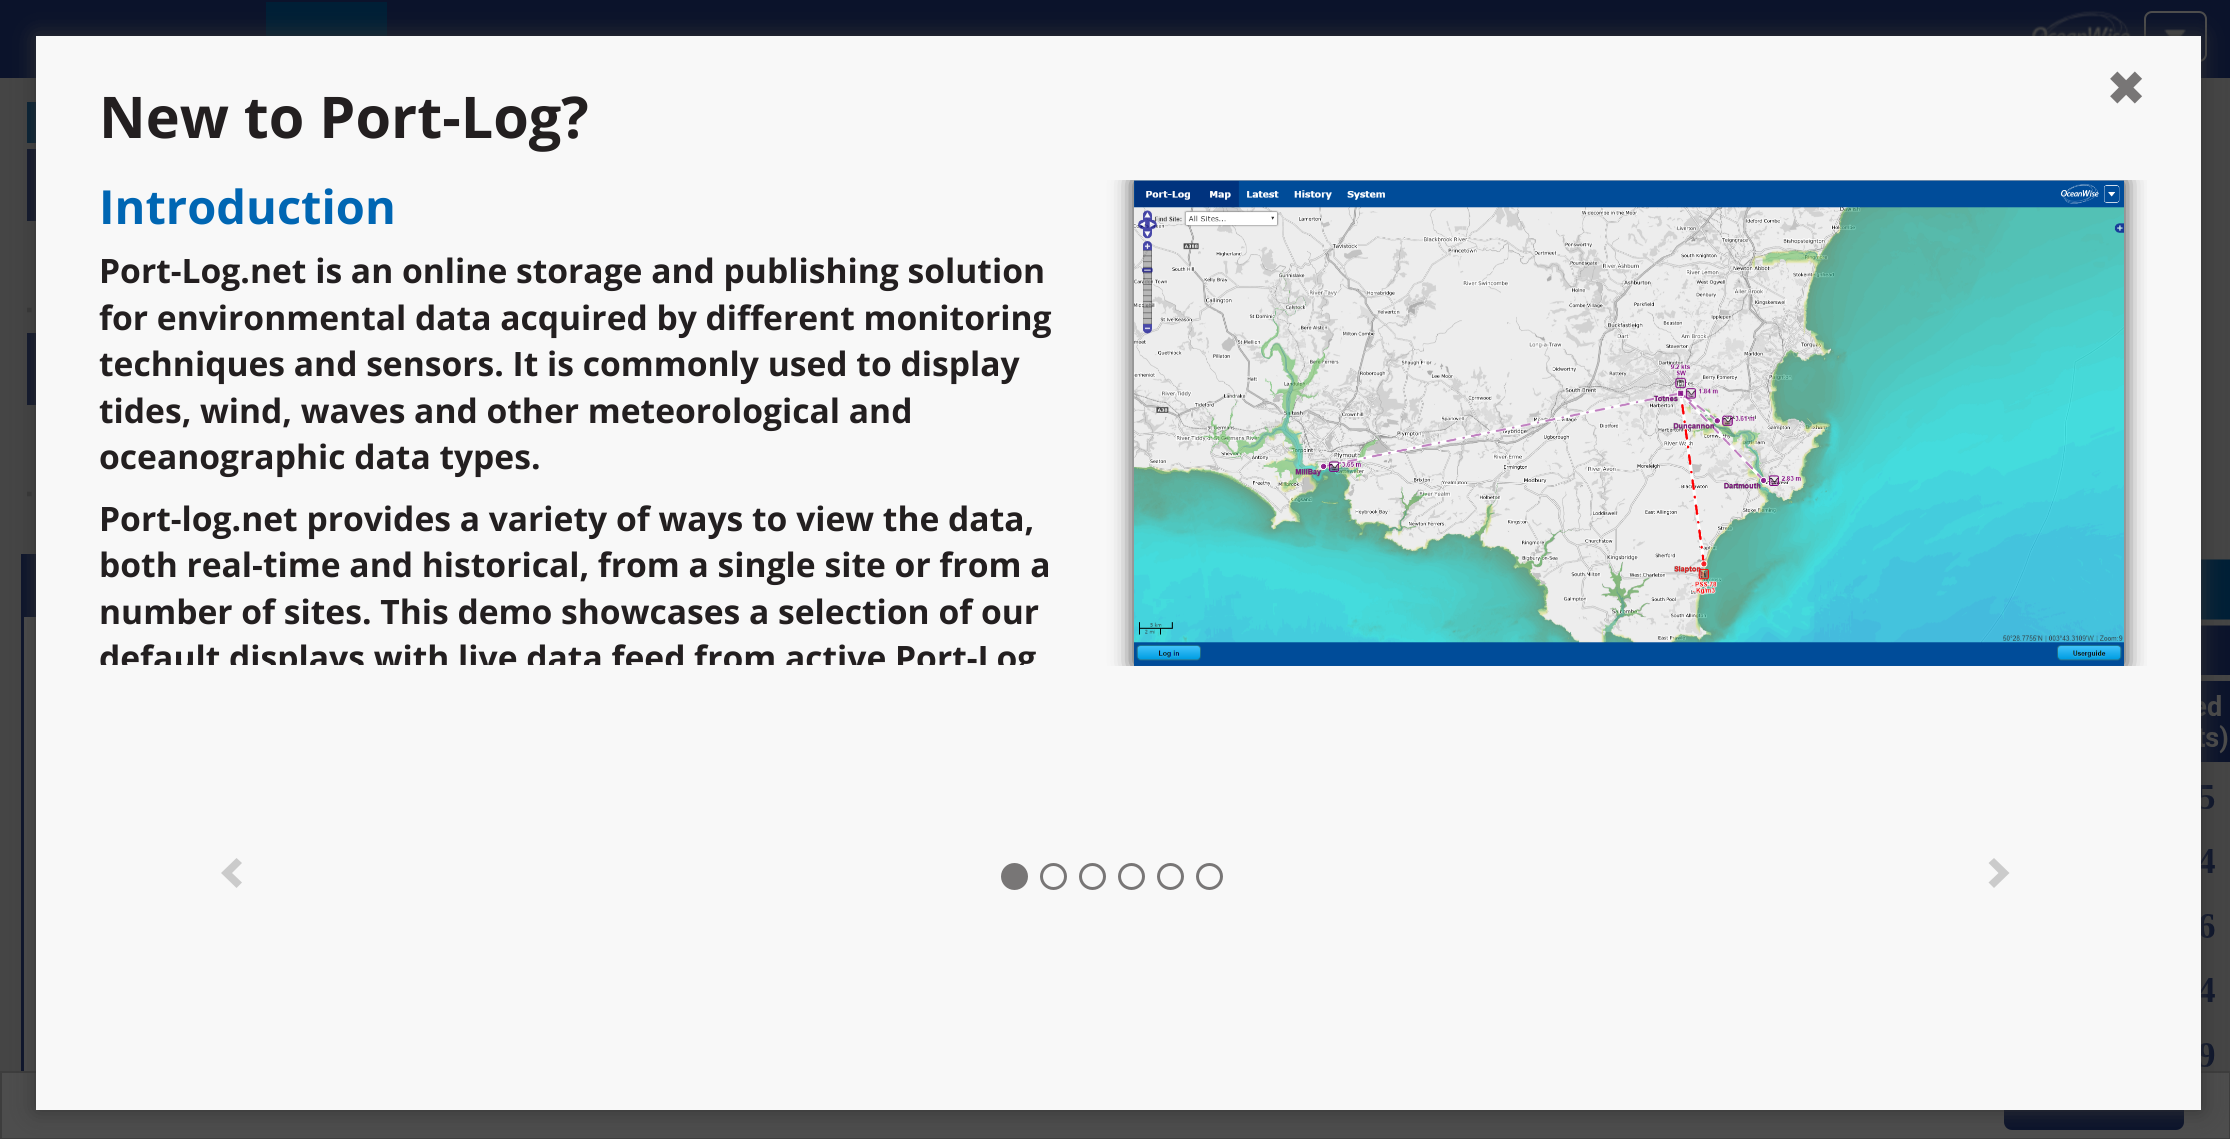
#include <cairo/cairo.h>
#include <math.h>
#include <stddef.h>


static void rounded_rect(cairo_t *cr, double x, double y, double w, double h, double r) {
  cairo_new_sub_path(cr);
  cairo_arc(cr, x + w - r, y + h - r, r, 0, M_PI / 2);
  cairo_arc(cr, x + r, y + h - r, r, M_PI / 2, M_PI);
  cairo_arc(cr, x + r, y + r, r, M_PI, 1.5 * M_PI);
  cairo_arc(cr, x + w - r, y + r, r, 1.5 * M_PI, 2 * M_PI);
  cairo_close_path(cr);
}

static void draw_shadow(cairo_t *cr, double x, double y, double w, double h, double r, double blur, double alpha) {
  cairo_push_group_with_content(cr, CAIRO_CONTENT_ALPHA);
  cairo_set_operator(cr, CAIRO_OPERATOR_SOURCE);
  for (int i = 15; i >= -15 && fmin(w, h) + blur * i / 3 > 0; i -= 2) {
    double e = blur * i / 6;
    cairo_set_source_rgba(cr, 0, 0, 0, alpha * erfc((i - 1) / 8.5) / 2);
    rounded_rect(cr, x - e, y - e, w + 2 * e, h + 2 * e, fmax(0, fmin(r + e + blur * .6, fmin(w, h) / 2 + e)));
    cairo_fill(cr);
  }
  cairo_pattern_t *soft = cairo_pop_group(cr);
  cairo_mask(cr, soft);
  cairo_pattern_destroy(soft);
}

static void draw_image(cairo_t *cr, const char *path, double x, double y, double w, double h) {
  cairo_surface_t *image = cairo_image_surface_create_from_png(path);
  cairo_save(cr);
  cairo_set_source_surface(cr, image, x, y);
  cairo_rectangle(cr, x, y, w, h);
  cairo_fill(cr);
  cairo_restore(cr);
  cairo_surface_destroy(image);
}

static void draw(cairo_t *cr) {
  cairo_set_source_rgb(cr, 69 / 255.0, 69 / 255.0, 69 / 255.0);
  cairo_paint(cr);
  cairo_set_source_rgb(cr, 11 / 255.0, 19 / 255.0, 43 / 255.0);
  cairo_rectangle(cr, 0, 0, 2230, 78);
  cairo_fill(cr);
  cairo_set_source_rgb(cr, 0, 31 / 255.0, 54 / 255.0);
  cairo_rectangle(cr, 266, 2, 121, 34);
  cairo_fill(cr);
  draw_image(cr, "images/1.png", 2031, 10, 100, 26);
  rounded_rect(cr, 2145, 12, 61, 49, 7);
  cairo_set_source_rgb(cr, 77 / 255.0, 77 / 255.0, 77 / 255.0);
  cairo_stroke(cr);
  draw_image(cr, "images/2.png", 2164, 29, 22, 7);
  cairo_set_source_rgb(cr, 0, 31 / 255.0, 54 / 255.0);
  cairo_rectangle(cr, 27, 102, 9, 41);
  cairo_fill(cr);
  cairo_set_source_rgb(cr, 11 / 255.0, 19 / 255.0, 43 / 255.0);
  cairo_rectangle(cr, 27, 149, 9, 72);
  cairo_fill(cr);
  cairo_new_path(cr);
  cairo_move_to(cr, 27, 310);
  cairo_line_to(cr, 252, 310);
  cairo_set_source_rgb(cr, 56 / 255.0, 56 / 255.0, 56 / 255.0);
  cairo_set_line_width(cr, 4.5);
  cairo_set_dash(cr, (double[]){4.5, 4.5}, 2, 0);
  cairo_stroke(cr);
  cairo_set_source_rgb(cr, 11 / 255.0, 19 / 255.0, 43 / 255.0);
  cairo_rectangle(cr, 27, 333, 9, 72);
  cairo_fill(cr);
  cairo_new_path(cr);
  cairo_move_to(cr, 27, 494);
  cairo_line_to(cr, 252, 494);
  cairo_set_source_rgb(cr, 56 / 255.0, 56 / 255.0, 56 / 255.0);
  cairo_stroke(cr);
  cairo_rectangle(cr, 22.5, 555.5, 1272, 57);
  cairo_set_source_rgb(cr, 11 / 255.0, 19 / 255.0, 43 / 255.0);
  cairo_set_line_width(cr, 3);
  cairo_set_dash(cr, NULL, 0, 0);
  cairo_stroke(cr);
  cairo_rectangle(cr, 24, 557, 12, 54);
  cairo_fill(cr);
  cairo_rectangle(cr, 22.5, 615.5, 1272, 522);
  cairo_stroke(cr);
  cairo_set_source_rgb(cr, 77 / 255.0, 77 / 255.0, 77 / 255.0);
  cairo_rectangle(cr, 24, 617, 12, 454);
  cairo_fill(cr);
  draw_image(cr, "images/3.png", 2201, 559, 29, 508);
  cairo_rectangle(cr, 1, 1072, 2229, 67);
  cairo_fill_preserve(cr);
  cairo_set_source_rgb(cr, 61 / 255.0, 61 / 255.0, 61 / 255.0);
  cairo_set_line_width(cr, 2);
  cairo_stroke(cr);
  cairo_set_source_rgb(cr, 11 / 255.0, 19 / 255.0, 43 / 255.0);
  rounded_rect(cr, 2004, 1083, 180, 47, 8);
  cairo_fill(cr);
  cairo_set_source_rgb(cr, 51 / 255.0, 51 / 255.0, 51 / 255.0);
  draw_shadow(cr, 36, 36, 2165, 1074, 0, 11, 1);
  cairo_set_source_rgb(cr, 248 / 255.0, 248 / 255.0, 248 / 255.0);
  cairo_rectangle(cr, 36, 36, 2165, 1074);
  cairo_fill(cr);
  cairo_save(cr);
  cairo_rectangle(cr, 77, 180, 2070, 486);
  cairo_clip(cr);
  cairo_set_source_rgb(cr, 51 / 255.0, 51 / 255.0, 51 / 255.0);
  draw_shadow(cr, 1134, 180, 990, 486, 0, 11, 1);
  cairo_restore(cr);
  draw_image(cr, "images/4.png", 1134, 180, 990, 486);
  cairo_set_source_rgb(cr, 203 / 255.0, 203 / 255.0, 203 / 255.0);
  cairo_new_path(cr);
  cairo_move_to(cr, 242, 863);
  cairo_line_to(cr, 232, 873);
  cairo_line_to(cr, 242, 882.5);
  cairo_line_to(cr, 236.5, 888);
  cairo_line_to(cr, 221, 873);
  cairo_line_to(cr, 236.5, 858);
  cairo_close_path(cr);
  cairo_fill(cr);
  cairo_set_source_rgb(cr, 120 / 255.0, 118 / 255.0, 118 / 255.0);
  cairo_arc(cr, 1014.5, 876.5, 12, 0, 2 * M_PI);
  cairo_fill_preserve(cr);
  cairo_set_line_width(cr, 3);
  cairo_stroke(cr);
  cairo_arc(cr, 1053.5, 876.5, 12, 0, 2 * M_PI);
  cairo_stroke(cr);
  cairo_arc(cr, 1092.5, 876.5, 12, 0, 2 * M_PI);
  cairo_stroke(cr);
  cairo_arc(cr, 1131.5, 876.5, 12, 0, 2 * M_PI);
  cairo_stroke(cr);
  cairo_arc(cr, 1170.5, 876.5, 12, 0, 2 * M_PI);
  cairo_stroke(cr);
  cairo_arc(cr, 1209.5, 876.5, 12, 0, 2 * M_PI);
  cairo_stroke(cr);
  cairo_set_source_rgb(cr, 203 / 255.0, 203 / 255.0, 203 / 255.0);
  cairo_new_path(cr);
  cairo_move_to(cr, 2009.5, 873);
  cairo_line_to(cr, 1994, 888);
  cairo_line_to(cr, 1988.5, 882.5);
  cairo_line_to(cr, 1998.5, 873);
  cairo_line_to(cr, 1988.5, 863);
  cairo_line_to(cr, 1994, 858);
  cairo_close_path(cr);
  cairo_fill(cr);
  cairo_select_font_face(cr, "DejaVu Sans", CAIRO_FONT_SLANT_NORMAL, CAIRO_FONT_WEIGHT_NORMAL);
  cairo_set_font_size(cr, 48);
  cairo_set_source_rgb(cr, 120 / 255.0, 118 / 255.0, 118 / 255.0);
  cairo_move_to(cr, 2106, 105);
  cairo_show_text(cr, "✖");
  cairo_select_font_face(cr, "Open Sans", CAIRO_FONT_SLANT_NORMAL, CAIRO_FONT_WEIGHT_BOLD);
  cairo_set_font_size(cr, 57.5);
  cairo_set_source_rgb(cr, 35 / 255.0, 31 / 255.0, 32 / 255.0);
  cairo_move_to(cr, 99, 138);
  cairo_show_text(cr, "New to Port-Log?");
  cairo_set_font_size(cr, 47);
  cairo_set_source_rgb(cr, 0, 102 / 255.0, 179 / 255.0);
  cairo_move_to(cr, 99, 224);
  cairo_show_text(cr, "Introduction");
  cairo_set_font_size(cr, 33.6);
  cairo_set_source_rgb(cr, 35 / 255.0, 31 / 255.0, 32 / 255.0);
  cairo_move_to(cr, 99, 283);
  cairo_show_text(cr, "Port-Log.net is an online storage and publishing solution");
  cairo_move_to(cr, 99, 330);
  cairo_show_text(cr, "for environmental data acquired by different monitoring");
  cairo_move_to(cr, 99, 376);
  cairo_show_text(cr, "techniques and sensors. It is commonly used to display");
  cairo_move_to(cr, 99, 423);
  cairo_show_text(cr, "tides, wind, waves and other meteorological and");
  cairo_move_to(cr, 99, 469);
  cairo_show_text(cr, "oceanographic data types.");
  cairo_move_to(cr, 99, 531);
  cairo_show_text(cr, "Port-log.net provides a variety of ways to view the data,");
  cairo_move_to(cr, 99, 577);
  cairo_show_text(cr, "both real-time and historical, from a single site or from a");
  cairo_move_to(cr, 99, 624);
  cairo_show_text(cr, "number of sites. This demo showcases a selection of our");
  cairo_save(cr);
  cairo_rectangle(cr, 77, 180, 1035, 485);
  cairo_clip(cr);
  cairo_move_to(cr, 99, 670);
  cairo_show_text(cr, "default displays with live data feed from active Port-Log");
  cairo_restore(cr);
}

int main(void) {
  cairo_surface_t *surface = cairo_image_surface_create(CAIRO_FORMAT_RGB24, 2230, 1139);
  cairo_t *cr = cairo_create(surface);
  cairo_font_options_t *options = cairo_font_options_create();
  cairo_font_options_set_hint_metrics(options, CAIRO_HINT_METRICS_OFF);
  cairo_font_options_set_hint_style(options, CAIRO_HINT_STYLE_NONE);
  cairo_set_font_options(cr, options);
  cairo_set_miter_limit(cr, 4);
  draw(cr);
  cairo_surface_write_to_png(surface, "out.png");
  cairo_font_options_destroy(options);
  cairo_destroy(cr);
  cairo_surface_destroy(surface);
  return 0;
}
